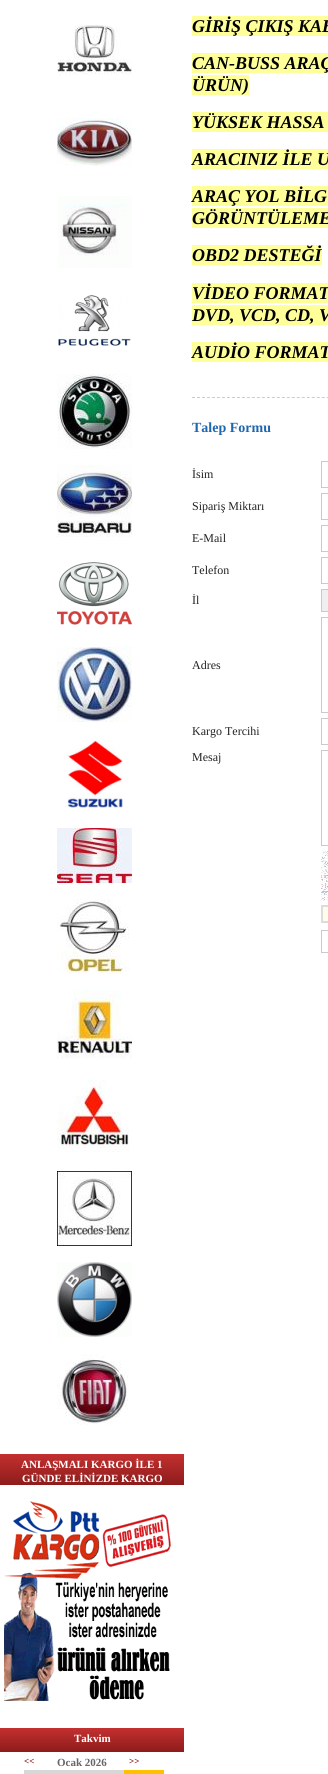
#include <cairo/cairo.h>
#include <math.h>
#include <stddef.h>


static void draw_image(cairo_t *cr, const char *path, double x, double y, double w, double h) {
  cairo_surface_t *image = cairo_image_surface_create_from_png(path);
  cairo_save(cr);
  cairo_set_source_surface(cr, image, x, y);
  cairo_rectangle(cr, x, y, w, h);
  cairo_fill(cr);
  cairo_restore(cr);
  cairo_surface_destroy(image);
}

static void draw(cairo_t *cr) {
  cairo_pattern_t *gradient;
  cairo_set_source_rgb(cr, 1, 1, 1);
  cairo_paint(cr);
  cairo_set_source_rgb(cr, 1, 1, 153 / 255.0);
  cairo_rectangle(cr, 192, 16, 136, 20);
  cairo_fill(cr);
  cairo_rectangle(cr, 192, 53, 136, 20);
  cairo_fill(cr);
  cairo_rectangle(cr, 192, 75, 57, 20);
  cairo_fill(cr);
  cairo_rectangle(cr, 192, 112, 136, 20);
  cairo_fill(cr);
  cairo_rectangle(cr, 192, 149, 136, 20);
  cairo_fill(cr);
  cairo_rectangle(cr, 192, 186, 136, 20);
  cairo_fill(cr);
  cairo_rectangle(cr, 192, 208, 136, 20);
  cairo_fill(cr);
  cairo_rectangle(cr, 192, 245, 130, 20);
  cairo_fill(cr);
  cairo_rectangle(cr, 192, 283, 136, 20);
  cairo_fill(cr);
  cairo_rectangle(cr, 192, 305, 136, 20);
  cairo_fill(cr);
  cairo_rectangle(cr, 192, 342, 136, 20);
  cairo_fill(cr);
  cairo_new_path(cr);
  cairo_move_to(cr, 192, 397.5);
  cairo_line_to(cr, 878, 397.5);
  cairo_set_source_rgb(cr, 204 / 255.0, 204 / 255.0, 204 / 255.0);
  cairo_set_line_width(cr, 1);
  cairo_set_dash(cr, (double[]){3, 1.99}, 2, 0);
  cairo_stroke(cr);
  cairo_rectangle(cr, 321.5, 461.5, 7, 26);
  cairo_set_source_rgb(cr, 202 / 255.0, 202 / 255.0, 202 / 255.0);
  cairo_set_dash(cr, NULL, 0, 0);
  cairo_stroke(cr);
  cairo_rectangle(cr, 321.5, 493.5, 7, 26);
  cairo_stroke(cr);
  cairo_rectangle(cr, 321.5, 525.5, 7, 26);
  cairo_stroke(cr);
  cairo_rectangle(cr, 321.5, 557.5, 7, 26);
  cairo_stroke(cr);
  cairo_set_source_rgb(cr, 239 / 255.0, 239 / 255.0, 239 / 255.0);
  cairo_rectangle(cr, 321.5, 589.5, 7, 22);
  cairo_fill_preserve(cr);
  cairo_set_source_rgb(cr, 202 / 255.0, 202 / 255.0, 202 / 255.0);
  cairo_stroke(cr);
  cairo_rectangle(cr, 321.5, 617.5, 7, 95);
  cairo_stroke(cr);
  cairo_rectangle(cr, 321.5, 718.5, 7, 26);
  cairo_stroke(cr);
  cairo_rectangle(cr, 321.5, 750.5, 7, 95);
  cairo_stroke(cr);
  draw_image(cr, "images/1.png", 321, 851, 7, 50);
  cairo_set_source_rgb(cr, 1, 252 / 255.0, 236 / 255.0);
  cairo_rectangle(cr, 322, 906, 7, 16);
  cairo_fill_preserve(cr);
  cairo_set_source_rgb(cr, 220 / 255.0, 220 / 255.0, 220 / 255.0);
  cairo_set_line_width(cr, 2);
  cairo_stroke(cr);
  cairo_rectangle(cr, 321.5, 930.5, 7, 22);
  cairo_set_source_rgb(cr, 202 / 255.0, 202 / 255.0, 202 / 255.0);
  cairo_set_line_width(cr, 1);
  cairo_stroke(cr);
  draw_image(cr, "images/2.png", 57, 25, 75, 50);
  draw_image(cr, "images/3.png", 57, 118, 75, 48);
  draw_image(cr, "images/4.png", 58, 196, 74, 72);
  draw_image(cr, "images/5.png", 58, 295, 73, 51);
  draw_image(cr, "images/6.png", 57, 374, 75, 75);
  draw_image(cr, "images/7.png", 57, 465, 75, 72);
  draw_image(cr, "images/8.png", 57, 562, 75, 63);
  draw_image(cr, "images/9.png", 57, 647, 75, 75);
  draw_image(cr, "images/10.png", 67, 740, 56, 68);
  draw_image(cr, "images/11.png", 57, 828, 75, 55);
  draw_image(cr, "images/12.png", 57, 899, 72, 75);
  draw_image(cr, "images/13.png", 57, 990, 75, 69);
  draw_image(cr, "images/14.png", 57, 1080, 72, 72);
  draw_image(cr, "images/15.png", 57, 1171, 75, 75);
  draw_image(cr, "images/16.png", 57, 1262, 75, 75);
  draw_image(cr, "images/17.png", 57, 1355, 72, 70);
  gradient = cairo_pattern_create_linear(92, 1454, 92, 1485);
  cairo_pattern_add_color_stop_rgba(gradient, 0, 196 / 255.0, 48 / 255.0, 48 / 255.0, 1);
  cairo_pattern_add_color_stop_rgba(gradient, 1, 140 / 255.0, 28 / 255.0, 27 / 255.0, 1);
  cairo_set_source(cr, gradient);
  cairo_pattern_destroy(gradient);
  cairo_rectangle(cr, 0, 1454, 184, 31);
  cairo_fill(cr);
  draw_image(cr, "images/18.png", 4, 1501, 167, 200);
  gradient = cairo_pattern_create_linear(92, 1728, 92, 1752);
  cairo_pattern_add_color_stop_rgba(gradient, 0, 196 / 255.0, 48 / 255.0, 48 / 255.0, 1);
  cairo_pattern_add_color_stop_rgba(gradient, 1, 140 / 255.0, 28 / 255.0, 27 / 255.0, 1);
  cairo_set_source(cr, gradient);
  cairo_pattern_destroy(gradient);
  cairo_rectangle(cr, 0, 1728, 184, 24);
  cairo_fill(cr);
  cairo_set_source_rgb(cr, 215 / 255.0, 215 / 255.0, 215 / 255.0);
  cairo_rectangle(cr, 24, 1770, 100, 4);
  cairo_fill(cr);
  cairo_set_source_rgb(cr, 1, 192 / 255.0, 0);
  cairo_rectangle(cr, 124, 1770, 40, 4);
  cairo_fill(cr);
  cairo_select_font_face(cr, "Liberation Serif", CAIRO_FONT_SLANT_ITALIC, CAIRO_FONT_WEIGHT_BOLD);
  cairo_set_font_size(cr, 18);
  cairo_set_source_rgb(cr, 0, 0, 0);
  cairo_move_to(cr, 192, 32);
  cairo_show_text(cr, "GİRİŞ ÇIKIŞ KAB");
  cairo_move_to(cr, 192, 69);
  cairo_show_text(cr, "CAN-BUSS ARAÇ");
  cairo_move_to(cr, 192, 91);
  cairo_show_text(cr, "ÜRÜN)");
  cairo_move_to(cr, 192, 128);
  cairo_show_text(cr, "YÜKSEK HASSA");
  cairo_move_to(cr, 192, 165);
  cairo_show_text(cr, "ARACINIZ İLE U");
  cairo_move_to(cr, 192, 202);
  cairo_show_text(cr, "ARAÇ YOL BİLG");
  cairo_move_to(cr, 192, 224);
  cairo_show_text(cr, "GÖRÜNTÜLEME");
  cairo_move_to(cr, 192, 261);
  cairo_show_text(cr, "OBD2 DESTEĞİ");
  cairo_move_to(cr, 192, 299);
  cairo_show_text(cr, "VİDEO FORMAT");
  cairo_move_to(cr, 192, 321);
  cairo_show_text(cr, "DVD, VCD, CD, V");
  cairo_move_to(cr, 192, 358);
  cairo_show_text(cr, "AUDİO FORMAT");
  cairo_select_font_face(cr, "Liberation Serif", CAIRO_FONT_SLANT_NORMAL, CAIRO_FONT_WEIGHT_BOLD);
  cairo_set_font_size(cr, 14);
  cairo_set_source_rgb(cr, 30 / 255.0, 102 / 255.0, 174 / 255.0);
  cairo_move_to(cr, 192, 432);
  cairo_show_text(cr, "Talep Formu");
  cairo_select_font_face(cr, "Liberation Serif", CAIRO_FONT_SLANT_NORMAL, CAIRO_FONT_WEIGHT_NORMAL);
  cairo_set_font_size(cr, 12);
  cairo_set_source_rgb(cr, 34 / 255.0, 34 / 255.0, 34 / 255.0);
  cairo_move_to(cr, 192, 478);
  cairo_show_text(cr, "İsim");
  cairo_move_to(cr, 192, 510);
  cairo_show_text(cr, "Sipariş Miktarı");
  cairo_move_to(cr, 192, 542);
  cairo_show_text(cr, "E-Mail");
  cairo_move_to(cr, 192, 574);
  cairo_show_text(cr, "Telefon");
  cairo_move_to(cr, 192, 604);
  cairo_show_text(cr, "İl");
  cairo_move_to(cr, 192, 669);
  cairo_show_text(cr, "Adres");
  cairo_move_to(cr, 192, 735);
  cairo_show_text(cr, "Kargo Tercihi");
  cairo_move_to(cr, 192, 761);
  cairo_show_text(cr, "Mesaj");
  cairo_select_font_face(cr, "Liberation Serif", CAIRO_FONT_SLANT_NORMAL, CAIRO_FONT_WEIGHT_BOLD);
  cairo_set_font_size(cr, 11);
  cairo_set_source_rgb(cr, 1, 1, 1);
  cairo_move_to(cr, 21, 1468);
  cairo_show_text(cr, "ANLAŞMALI KARGO İLE 1");
  cairo_move_to(cr, 22, 1482);
  cairo_show_text(cr, "GÜNDE ELİNİZDE KARGO");
  cairo_move_to(cr, 74, 1742);
  cairo_show_text(cr, "Takvim");
  cairo_set_font_size(cr, 9);
  cairo_set_source_rgb(cr, 128 / 255.0, 0, 0);
  cairo_move_to(cr, 24, 1764);
  cairo_show_text(cr, "<<");
  cairo_set_font_size(cr, 11);
  cairo_set_source_rgb(cr, 102 / 255.0, 102 / 255.0, 102 / 255.0);
  cairo_move_to(cr, 57, 1766);
  cairo_show_text(cr, "Ocak 2026");
  cairo_set_font_size(cr, 9);
  cairo_set_source_rgb(cr, 128 / 255.0, 0, 0);
  cairo_move_to(cr, 129, 1764);
  cairo_show_text(cr, ">>");
}

int main(void) {
  cairo_surface_t *surface = cairo_image_surface_create(CAIRO_FORMAT_RGB24, 328, 1774);
  cairo_t *cr = cairo_create(surface);
  cairo_font_options_t *options = cairo_font_options_create();
  cairo_font_options_set_hint_metrics(options, CAIRO_HINT_METRICS_OFF);
  cairo_font_options_set_hint_style(options, CAIRO_HINT_STYLE_NONE);
  cairo_set_font_options(cr, options);
  cairo_set_miter_limit(cr, 4);
  draw(cr);
  cairo_surface_write_to_png(surface, "out.png");
  cairo_font_options_destroy(options);
  cairo_destroy(cr);
  cairo_surface_destroy(surface);
  return 0;
}
